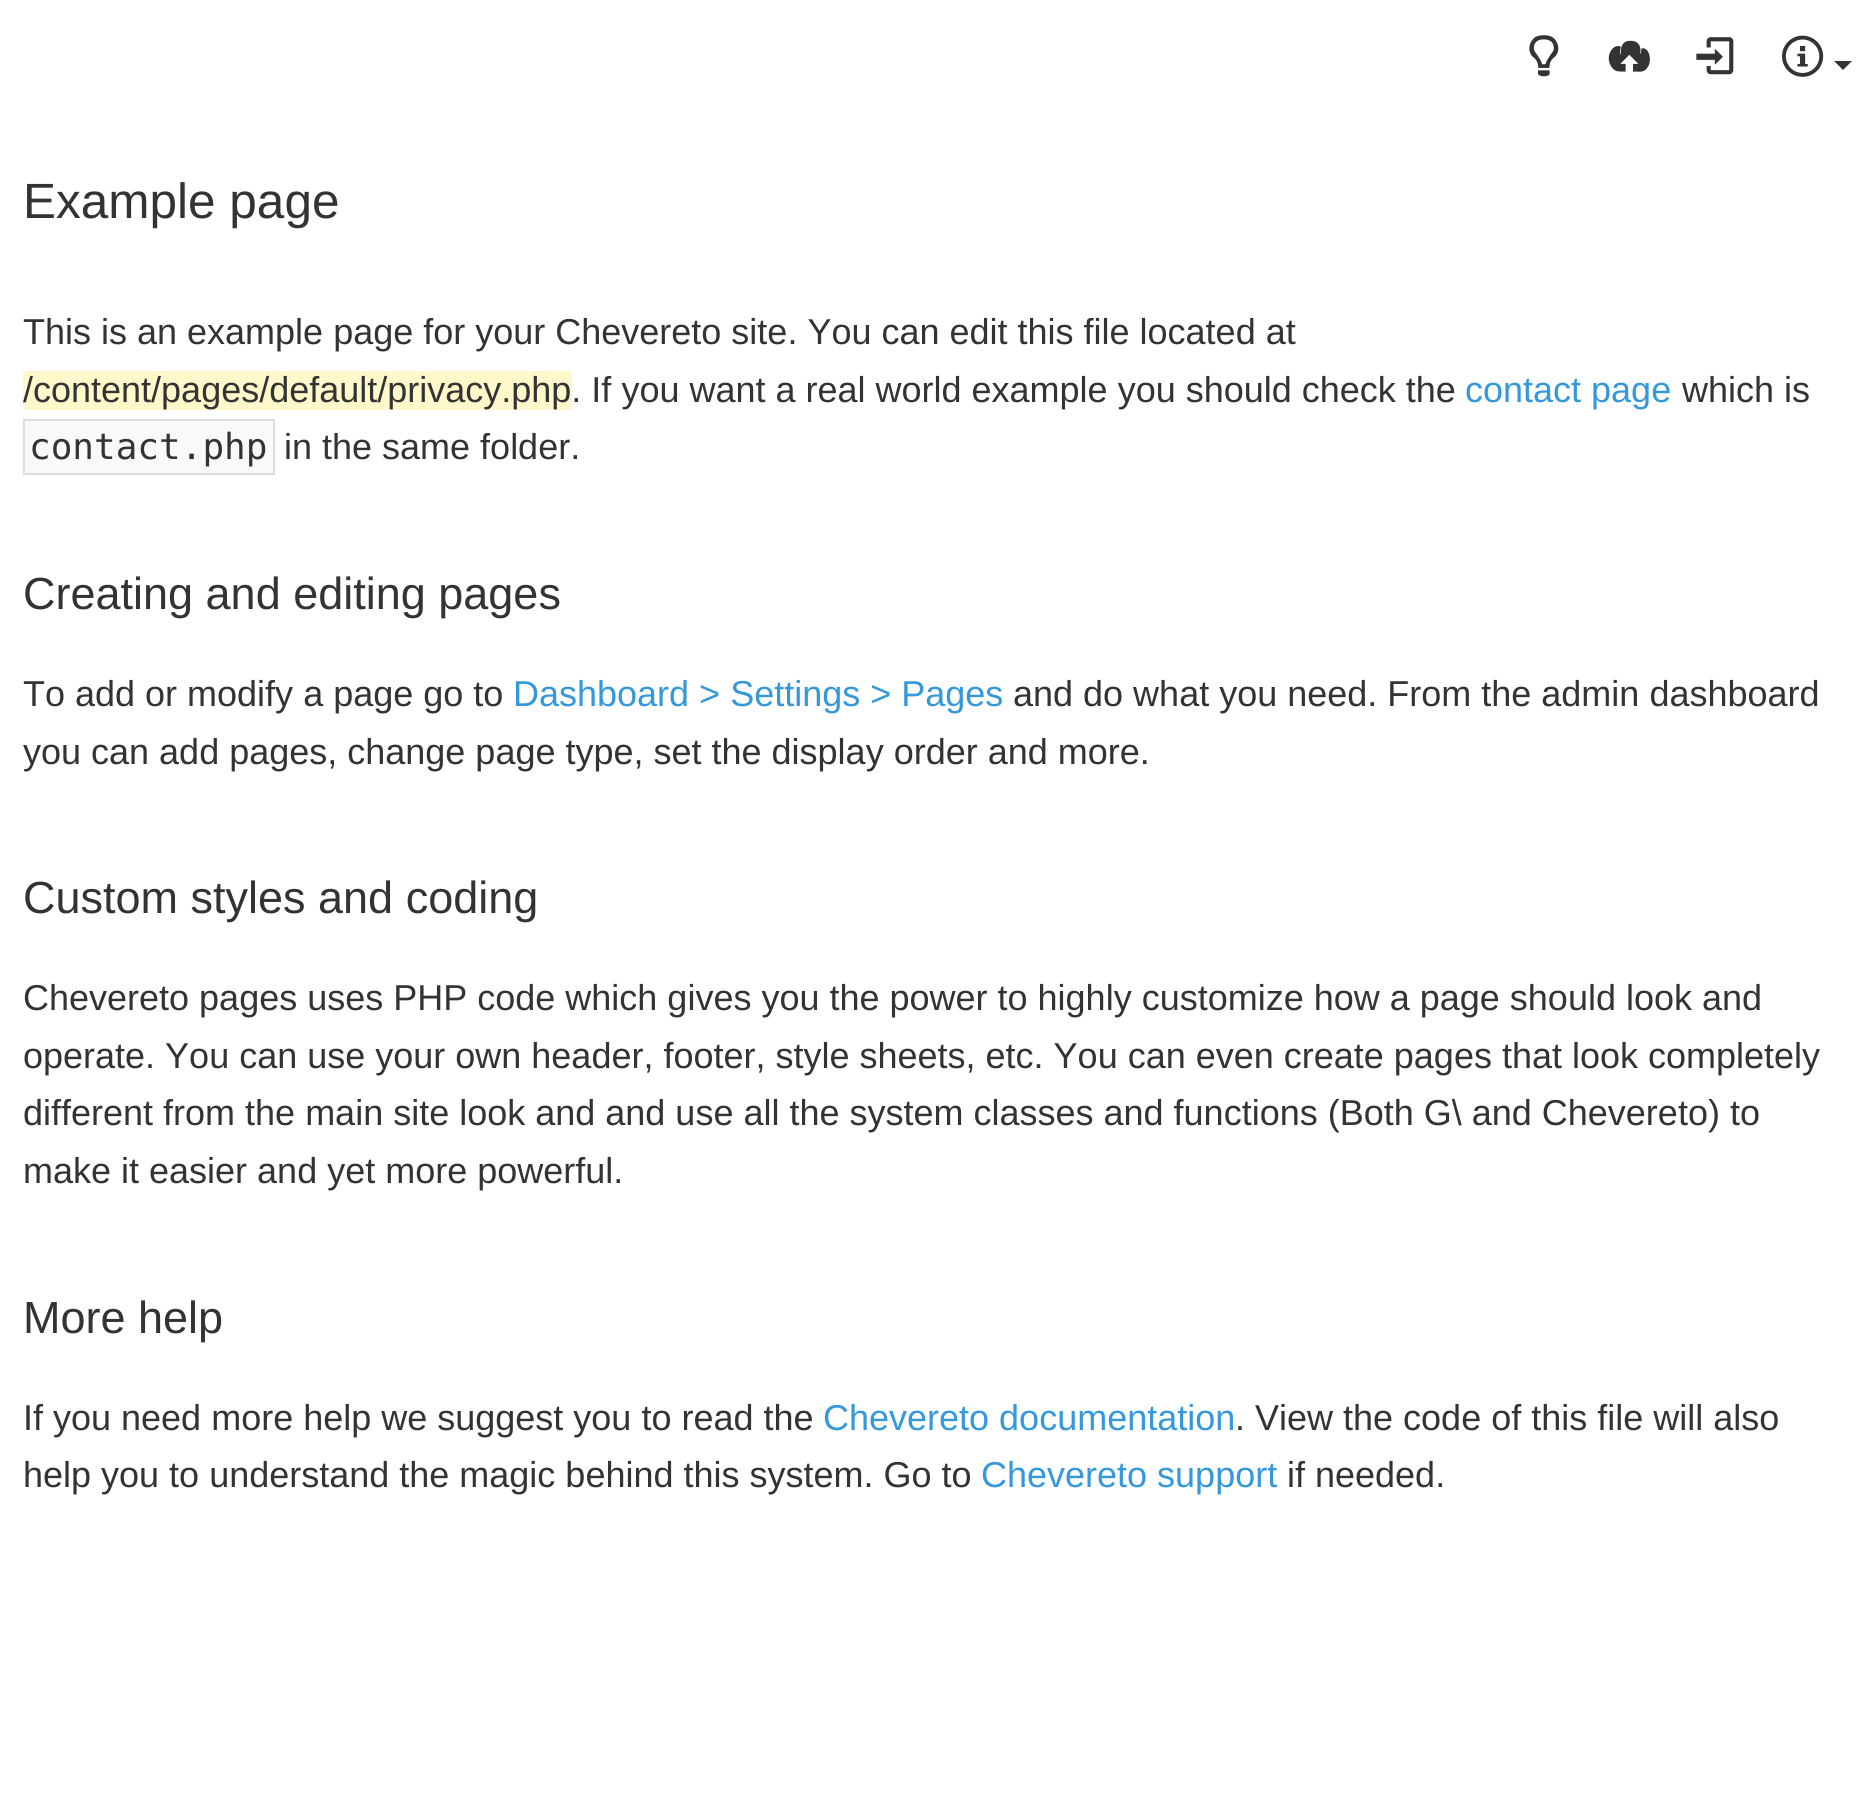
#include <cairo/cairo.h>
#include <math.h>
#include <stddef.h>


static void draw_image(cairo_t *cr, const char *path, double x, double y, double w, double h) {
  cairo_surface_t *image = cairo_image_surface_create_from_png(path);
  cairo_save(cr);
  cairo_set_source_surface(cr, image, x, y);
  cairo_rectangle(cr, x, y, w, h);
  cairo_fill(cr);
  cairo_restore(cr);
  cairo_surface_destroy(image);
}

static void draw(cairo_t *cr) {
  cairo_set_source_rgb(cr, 1, 1, 1);
  cairo_paint(cr);
  draw_image(cr, "images/1.png", 1529, 35, 30, 42);
  draw_image(cr, "images/2.png", 1608, 40, 42, 32);
  draw_image(cr, "images/3.png", 1696, 37, 38, 38);
  draw_image(cr, "images/4.png", 1782, 35, 42, 42);
  cairo_set_source_rgb(cr, 51 / 255.0, 51 / 255.0, 51 / 255.0);
  cairo_new_path(cr);
  cairo_move_to(cr, 1834, 61);
  cairo_line_to(cr, 1852, 61);
  cairo_line_to(cr, 1843, 70);
  cairo_close_path(cr);
  cairo_fill(cr);
  cairo_set_source_rgb(cr, 1, 248 / 255.0, 203 / 255.0);
  cairo_rectangle(cr, 23, 371, 549, 39);
  cairo_fill(cr);
  cairo_set_source_rgb(cr, 249 / 255.0, 249 / 255.0, 249 / 255.0);
  cairo_rectangle(cr, 24, 420, 250, 54);
  cairo_fill_preserve(cr);
  cairo_set_source_rgb(cr, 221 / 255.0, 221 / 255.0, 221 / 255.0);
  cairo_stroke(cr);
  cairo_select_font_face(cr, "Liberation Sans", CAIRO_FONT_SLANT_NORMAL, CAIRO_FONT_WEIGHT_NORMAL);
  cairo_set_font_size(cr, 49.5);
  cairo_set_source_rgb(cr, 51 / 255.0, 51 / 255.0, 51 / 255.0);
  cairo_move_to(cr, 23, 218);
  cairo_show_text(cr, "Example page");
  cairo_set_font_size(cr, 36);
  cairo_move_to(cr, 23, 344);
  cairo_show_text(cr, "This is an example page for your Chevereto site. You can edit this file located at");
  cairo_move_to(cr, 23, 402);
  cairo_show_text(cr, "/content/pages/default/privacy.php. If you want a real world example you should check the");
  cairo_set_source_rgb(cr, 52 / 255.0, 152 / 255.0, 219 / 255.0);
  cairo_move_to(cr, 1465, 402);
  cairo_show_text(cr, "contact page");
  cairo_set_source_rgb(cr, 51 / 255.0, 51 / 255.0, 51 / 255.0);
  cairo_move_to(cr, 1682, 402);
  cairo_show_text(cr, "which is");
  cairo_select_font_face(cr, "DejaVu Sans Mono", CAIRO_FONT_SLANT_NORMAL, CAIRO_FONT_WEIGHT_NORMAL);
  cairo_move_to(cr, 29, 459);
  cairo_show_text(cr, "contact.php");
  cairo_select_font_face(cr, "Liberation Sans", CAIRO_FONT_SLANT_NORMAL, CAIRO_FONT_WEIGHT_NORMAL);
  cairo_move_to(cr, 284, 459);
  cairo_show_text(cr, "in the same folder.");
  cairo_set_font_size(cr, 45);
  cairo_move_to(cr, 23, 609);
  cairo_show_text(cr, "Creating and editing pages");
  cairo_set_font_size(cr, 36);
  cairo_move_to(cr, 23, 706);
  cairo_show_text(cr, "To add or modify a page go to");
  cairo_set_source_rgb(cr, 52 / 255.0, 152 / 255.0, 219 / 255.0);
  cairo_move_to(cr, 513, 706);
  cairo_show_text(cr, "Dashboard > Settings > Pages");
  cairo_set_source_rgb(cr, 51 / 255.0, 51 / 255.0, 51 / 255.0);
  cairo_move_to(cr, 1013, 706);
  cairo_show_text(cr, "and do what you need. From the admin dashboard");
  cairo_move_to(cr, 23, 764);
  cairo_show_text(cr, "you can add pages, change page type, set the display order and more.");
  cairo_set_font_size(cr, 45);
  cairo_move_to(cr, 23, 913);
  cairo_show_text(cr, "Custom styles and coding");
  cairo_set_font_size(cr, 36);
  cairo_move_to(cr, 23, 1010);
  cairo_show_text(cr, "Chevereto pages uses PHP code which gives you the power to highly customize how a page should look and");
  cairo_move_to(cr, 23, 1068);
  cairo_show_text(cr, "operate. You can use your own header, footer, style sheets, etc. You can even create pages that look completely");
  cairo_move_to(cr, 23, 1125);
  cairo_show_text(cr, "different from the main site look and and use all the system classes and functions (Both G\\ and Chevereto) to");
  cairo_move_to(cr, 23, 1183);
  cairo_show_text(cr, "make it easier and yet more powerful.");
  cairo_set_font_size(cr, 45);
  cairo_move_to(cr, 23, 1333);
  cairo_show_text(cr, "More help");
  cairo_set_font_size(cr, 36);
  cairo_move_to(cr, 23, 1430);
  cairo_show_text(cr, "If you need more help we suggest you to read the");
  cairo_set_source_rgb(cr, 52 / 255.0, 152 / 255.0, 219 / 255.0);
  cairo_move_to(cr, 823, 1430);
  cairo_show_text(cr, "Chevereto documentation");
  cairo_set_source_rgb(cr, 51 / 255.0, 51 / 255.0, 51 / 255.0);
  cairo_move_to(cr, 1235, 1430);
  cairo_show_text(cr, ". View the code of this file will also");
  cairo_move_to(cr, 23, 1487);
  cairo_show_text(cr, "help you to understand the magic behind this system. Go to");
  cairo_set_source_rgb(cr, 52 / 255.0, 152 / 255.0, 219 / 255.0);
  cairo_move_to(cr, 981, 1487);
  cairo_show_text(cr, "Chevereto support");
  cairo_set_source_rgb(cr, 51 / 255.0, 51 / 255.0, 51 / 255.0);
  cairo_move_to(cr, 1287, 1487);
  cairo_show_text(cr, "if needed.");
}

int main(void) {
  cairo_surface_t *surface = cairo_image_surface_create(CAIRO_FORMAT_RGB24, 1874, 1797);
  cairo_t *cr = cairo_create(surface);
  cairo_font_options_t *options = cairo_font_options_create();
  cairo_font_options_set_hint_metrics(options, CAIRO_HINT_METRICS_OFF);
  cairo_font_options_set_hint_style(options, CAIRO_HINT_STYLE_NONE);
  cairo_set_font_options(cr, options);
  cairo_set_miter_limit(cr, 4);
  draw(cr);
  cairo_surface_write_to_png(surface, "out.png");
  cairo_font_options_destroy(options);
  cairo_destroy(cr);
  cairo_surface_destroy(surface);
  return 0;
}
